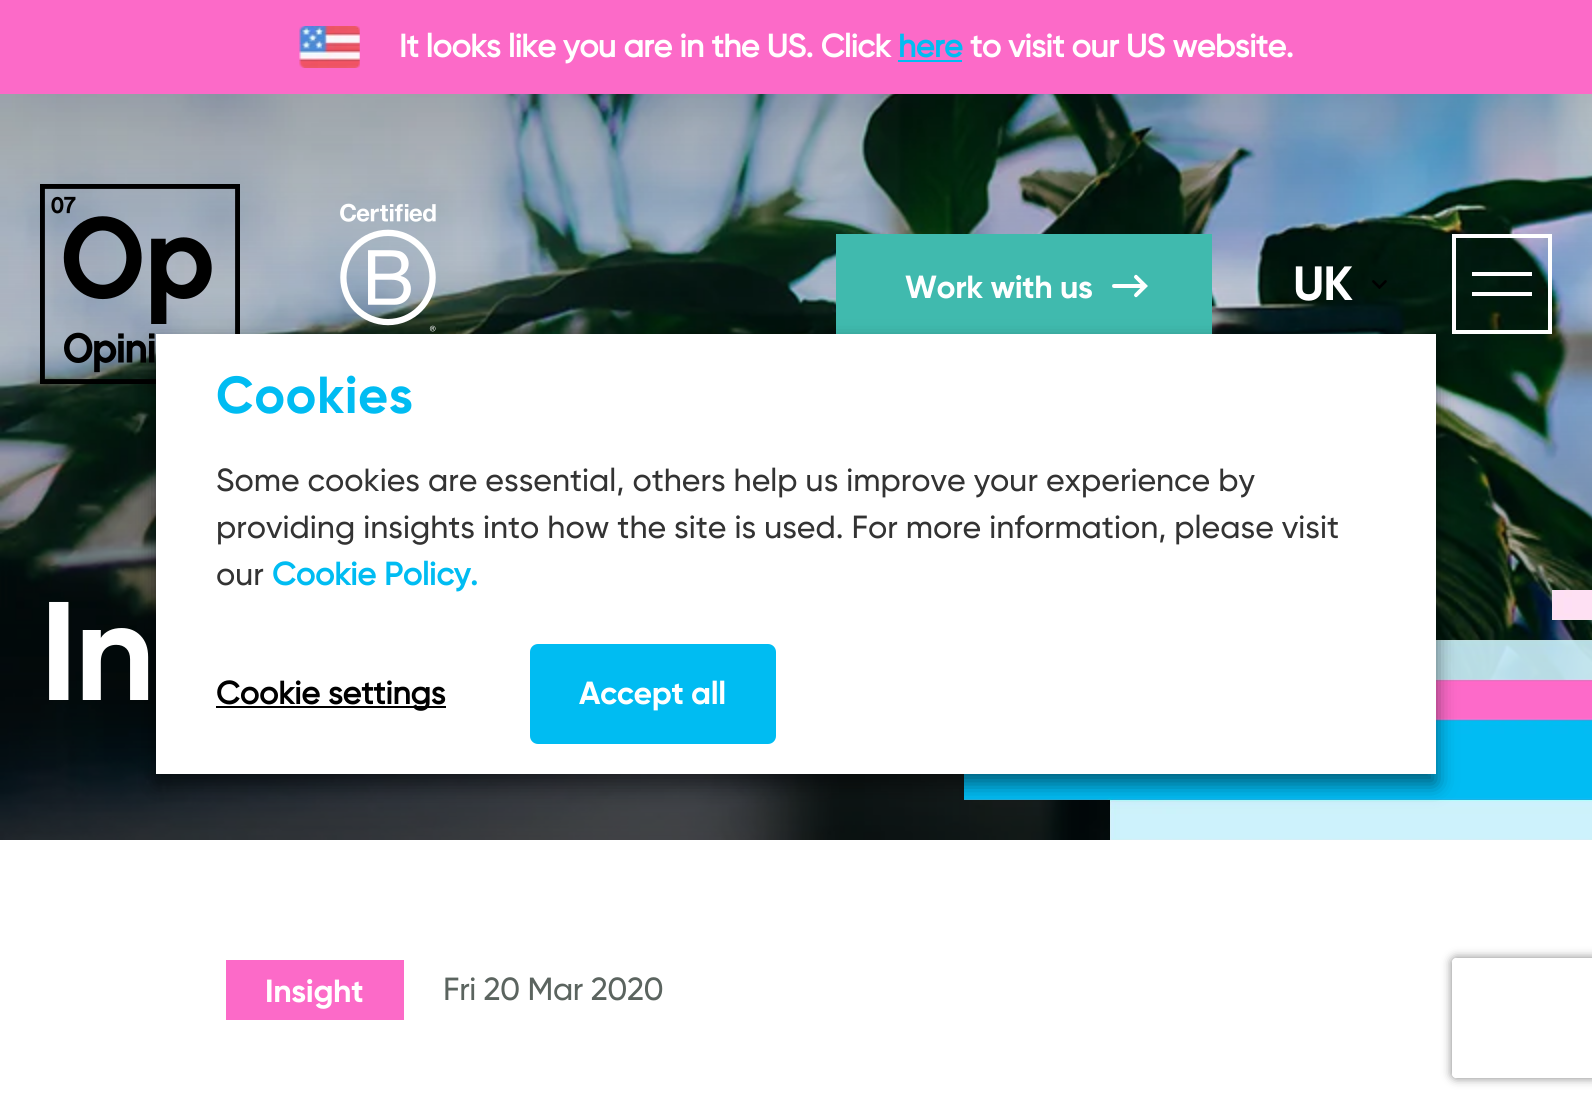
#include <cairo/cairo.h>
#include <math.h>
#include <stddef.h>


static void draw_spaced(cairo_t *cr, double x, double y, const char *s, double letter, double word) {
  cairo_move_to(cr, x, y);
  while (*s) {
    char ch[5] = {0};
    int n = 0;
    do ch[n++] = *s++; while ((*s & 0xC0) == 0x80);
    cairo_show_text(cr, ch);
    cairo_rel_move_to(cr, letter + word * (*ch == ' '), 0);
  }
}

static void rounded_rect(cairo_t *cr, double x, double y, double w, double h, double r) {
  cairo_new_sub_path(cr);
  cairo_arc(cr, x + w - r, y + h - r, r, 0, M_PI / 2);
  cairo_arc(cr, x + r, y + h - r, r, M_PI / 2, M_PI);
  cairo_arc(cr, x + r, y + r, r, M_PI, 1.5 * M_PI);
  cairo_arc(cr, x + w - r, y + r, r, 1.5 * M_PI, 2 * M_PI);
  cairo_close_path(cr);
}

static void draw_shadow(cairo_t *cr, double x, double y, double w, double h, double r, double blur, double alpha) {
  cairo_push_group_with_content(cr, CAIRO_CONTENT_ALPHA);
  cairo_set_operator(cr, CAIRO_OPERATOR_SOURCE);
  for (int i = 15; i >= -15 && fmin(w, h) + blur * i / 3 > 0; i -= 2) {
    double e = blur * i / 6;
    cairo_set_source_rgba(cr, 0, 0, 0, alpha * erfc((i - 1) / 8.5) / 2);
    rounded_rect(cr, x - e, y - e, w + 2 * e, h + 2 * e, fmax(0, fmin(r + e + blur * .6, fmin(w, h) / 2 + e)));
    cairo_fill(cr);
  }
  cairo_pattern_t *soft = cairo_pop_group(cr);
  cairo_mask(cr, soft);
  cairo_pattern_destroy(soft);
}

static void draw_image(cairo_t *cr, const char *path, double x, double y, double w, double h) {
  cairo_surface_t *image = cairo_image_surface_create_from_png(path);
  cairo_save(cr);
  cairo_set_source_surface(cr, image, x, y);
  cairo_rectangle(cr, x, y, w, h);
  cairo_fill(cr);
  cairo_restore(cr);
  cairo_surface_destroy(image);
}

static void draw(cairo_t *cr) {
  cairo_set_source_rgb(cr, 1, 1, 1);
  cairo_paint(cr);
  cairo_set_source_rgb(cr, 252 / 255.0, 106 / 255.0, 200 / 255.0);
  cairo_rectangle(cr, 0, 0, 1592, 94);
  cairo_fill(cr);
  draw_image(cr, "images/1.png", 299, 26, 61, 42);
  cairo_set_source_rgb(cr, 0, 188 / 255.0, 242 / 255.0);
  cairo_rectangle(cr, 898, 60, 64, 2);
  cairo_fill(cr);
  draw_image(cr, "images/6.png", 0, 94, 1592, 746);
  draw_image(cr, "images/2.png", 40, 184, 200, 200);
  draw_image(cr, "images/3.png", 340, 203, 96, 129);
  cairo_set_source_rgb(cr, 64 / 255.0, 186 / 255.0, 174 / 255.0);
  cairo_rectangle(cr, 836, 234, 376, 100);
  cairo_fill(cr);
  draw_image(cr, "images/4.png", 1112, 274, 36, 24);
  draw_image(cr, "images/5.png", 1372, 280, 15, 9);
  cairo_rectangle(cr, 1454, 236, 96, 96);
  cairo_set_source_rgb(cr, 1, 1, 1);
  cairo_set_line_width(cr, 4);
  cairo_stroke(cr);
  cairo_rectangle(cr, 1472, 292, 60, 4);
  cairo_fill(cr);
  cairo_rectangle(cr, 1472, 272, 60, 4);
  cairo_fill(cr);
  draw_image(cr, "images/7.png", 964, 590, 628, 250);
  cairo_set_source_rgb(cr, 0, 0, 0);
  draw_shadow(cr, 156, 344, 1280, 440, 0, 10, 0.5);
  cairo_set_source_rgb(cr, 1, 1, 1);
  cairo_rectangle(cr, 156, 334, 1280, 440);
  cairo_fill(cr);
  cairo_set_source_rgb(cr, 0, 0, 0);
  cairo_rectangle(cr, 216, 706, 230, 2);
  cairo_fill(cr);
  cairo_set_source_rgb(cr, 0, 188 / 255.0, 242 / 255.0);
  rounded_rect(cr, 530, 644, 246, 100, 8);
  cairo_fill(cr);
  cairo_set_source_rgb(cr, 252 / 255.0, 106 / 255.0, 200 / 255.0);
  cairo_rectangle(cr, 226, 960, 178, 60);
  cairo_fill(cr);
  cairo_save(cr);
  cairo_set_fill_rule(cr, CAIRO_FILL_RULE_EVEN_ODD);
  cairo_new_path(cr);
  cairo_move_to(cr, 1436, 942);
  cairo_line_to(cr, 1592, 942);
  cairo_line_to(cr, 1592, 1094);
  cairo_line_to(cr, 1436, 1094);
  cairo_close_path(cr);
  cairo_move_to(cr, 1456, 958);
  cairo_line_to(cr, 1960, 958);
  cairo_curve_to(cr, 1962, 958, 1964, 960, 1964, 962);
  cairo_line_to(cr, 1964, 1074);
  cairo_curve_to(cr, 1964, 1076, 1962, 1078, 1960, 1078);
  cairo_line_to(cr, 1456, 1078);
  cairo_curve_to(cr, 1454, 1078, 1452, 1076, 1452, 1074);
  cairo_line_to(cr, 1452, 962);
  cairo_curve_to(cr, 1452, 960, 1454, 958, 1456, 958);
  cairo_close_path(cr);
  cairo_clip(cr);
  cairo_set_source_rgb(cr, 128 / 255.0, 128 / 255.0, 128 / 255.0);
  draw_shadow(cr, 1452, 958, 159, 120, 4, 5, 1);
  cairo_restore(cr);
  cairo_select_font_face(cr, "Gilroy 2", CAIRO_FONT_SLANT_NORMAL, CAIRO_FONT_WEIGHT_BOLD);
  cairo_set_font_size(cr, 32);
  cairo_set_source_rgb(cr, 1, 1, 1);
  draw_spaced(cr, 399, 57, "It looks like you are in the US. Click", -0.35, 0);
  cairo_set_source_rgb(cr, 0, 188 / 255.0, 242 / 255.0);
  draw_spaced(cr, 898, 57, "here", -0.35, 0);
  cairo_set_source_rgb(cr, 1, 1, 1);
  draw_spaced(cr, 970, 57, "to visit our US website.", -0.35, 0);
  cairo_select_font_face(cr, "Gilroy", CAIRO_FONT_SLANT_NORMAL, CAIRO_FONT_WEIGHT_BOLD);
  draw_spaced(cr, 905, 298, "Work with us", -0.35, 0);
  cairo_set_font_size(cr, 48);
  draw_spaced(cr, 1293, 300, "UK", -1, 0);
  cairo_set_font_size(cr, 52);
  cairo_set_source_rgb(cr, 0, 188 / 255.0, 242 / 255.0);
  draw_spaced(cr, 216, 413, "Cookies", 0.5, 0);
  cairo_select_font_face(cr, "Gilroy Medium", CAIRO_FONT_SLANT_NORMAL, CAIRO_FONT_WEIGHT_NORMAL);
  cairo_set_font_size(cr, 32);
  cairo_set_source_rgb(cr, 51 / 255.0, 51 / 255.0, 51 / 255.0);
  cairo_move_to(cr, 216, 491);
  cairo_show_text(cr, "Some cookies are essential, others help us improve your experience by");
  cairo_move_to(cr, 216, 538);
  cairo_show_text(cr, "providing insights into how the site is used. For more information, please visit");
  cairo_move_to(cr, 216, 585);
  cairo_show_text(cr, "our");
  cairo_select_font_face(cr, "Gilroy 2", CAIRO_FONT_SLANT_NORMAL, CAIRO_FONT_WEIGHT_BOLD);
  cairo_set_source_rgb(cr, 0, 188 / 255.0, 242 / 255.0);
  cairo_move_to(cr, 272, 585);
  cairo_show_text(cr, "Cookie Policy.");
  cairo_set_source_rgb(cr, 0, 0, 0);
  cairo_move_to(cr, 216, 704);
  cairo_show_text(cr, "Cookie settings");
  cairo_select_font_face(cr, "Gilroy", CAIRO_FONT_SLANT_NORMAL, CAIRO_FONT_WEIGHT_BOLD);
  cairo_set_source_rgb(cr, 1, 1, 1);
  draw_spaced(cr, 579, 704, "Accept all", -0.35, 0);
  cairo_set_font_size(cr, 140);
  draw_spaced(cr, 40, 700, "In", -3, 0);
  cairo_set_font_size(cr, 32);
  draw_spaced(cr, 265, 1002, "Insight", -0.35, 0);
  cairo_select_font_face(cr, "Gilroy Medium", CAIRO_FONT_SLANT_NORMAL, CAIRO_FONT_WEIGHT_NORMAL);
  cairo_set_source_rgb(cr, 91 / 255.0, 100 / 255.0, 95 / 255.0);
  draw_spaced(cr, 443, 1000, "Fri 20 Mar 2020", -0.35, 0);
}

int main(void) {
  cairo_surface_t *surface = cairo_image_surface_create(CAIRO_FORMAT_RGB24, 1592, 1106);
  cairo_t *cr = cairo_create(surface);
  cairo_font_options_t *options = cairo_font_options_create();
  cairo_font_options_set_hint_metrics(options, CAIRO_HINT_METRICS_OFF);
  cairo_font_options_set_hint_style(options, CAIRO_HINT_STYLE_NONE);
  cairo_set_font_options(cr, options);
  cairo_set_miter_limit(cr, 4);
  draw(cr);
  cairo_surface_write_to_png(surface, "out.png");
  cairo_font_options_destroy(options);
  cairo_destroy(cr);
  cairo_surface_destroy(surface);
  return 0;
}
